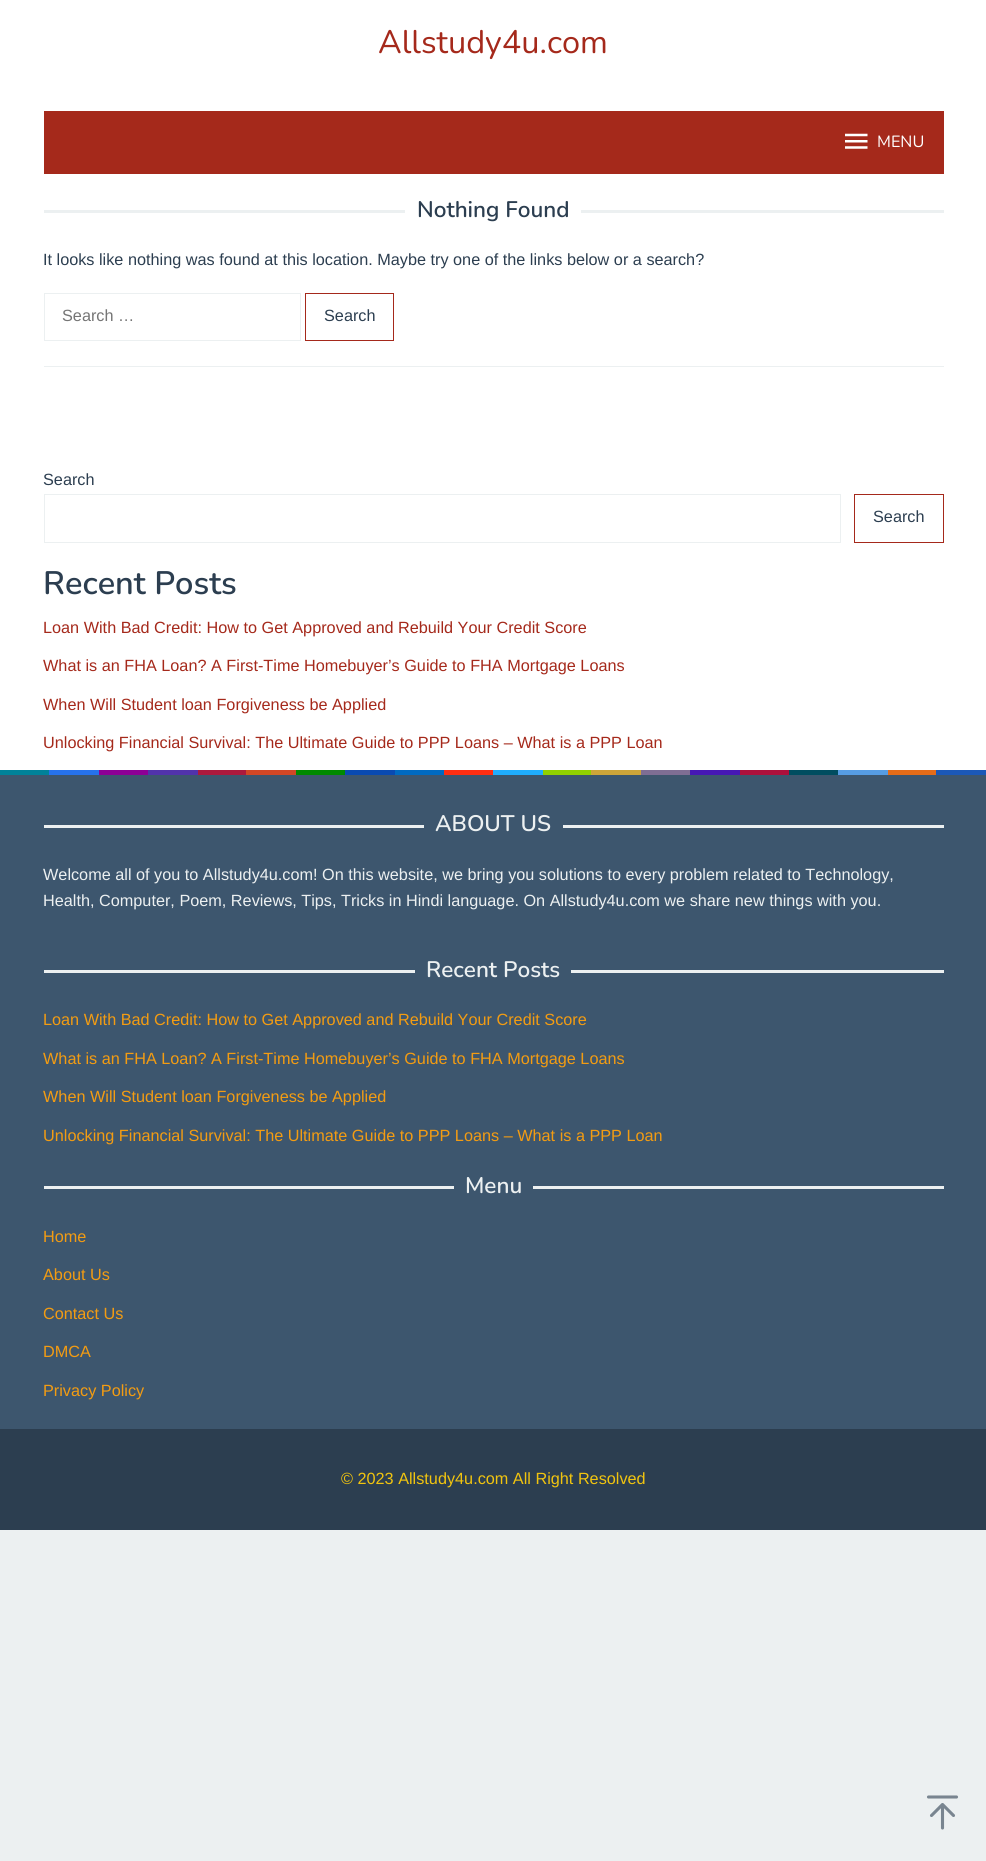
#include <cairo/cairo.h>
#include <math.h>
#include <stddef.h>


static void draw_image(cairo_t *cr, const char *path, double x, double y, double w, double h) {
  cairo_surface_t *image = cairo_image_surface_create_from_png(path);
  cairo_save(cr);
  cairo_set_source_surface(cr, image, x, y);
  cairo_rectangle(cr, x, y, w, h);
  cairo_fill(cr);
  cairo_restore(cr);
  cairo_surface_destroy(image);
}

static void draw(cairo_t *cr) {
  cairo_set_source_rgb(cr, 236 / 255.0, 240 / 255.0, 241 / 255.0);
  cairo_paint(cr);
  cairo_set_source_rgb(cr, 1, 1, 1);
  cairo_rectangle(cr, 0, 0, 986, 111);
  cairo_fill(cr);
  cairo_rectangle(cr, 0, 111, 986, 659);
  cairo_fill(cr);
  cairo_set_source_rgb(cr, 165 / 255.0, 41 / 255.0, 27 / 255.0);
  cairo_rectangle(cr, 44, 111, 900, 63);
  cairo_fill(cr);
  draw_image(cr, "images/1.png", 845, 133, 23, 16);
  cairo_set_source_rgb(cr, 236 / 255.0, 240 / 255.0, 241 / 255.0);
  cairo_rectangle(cr, 44, 366, 900, 1);
  cairo_fill(cr);
  cairo_rectangle(cr, 44, 210, 361, 3);
  cairo_fill(cr);
  cairo_rectangle(cr, 581, 210, 363, 3);
  cairo_fill(cr);
  cairo_rectangle(cr, 44.5, 293.5, 256, 47);
  cairo_set_line_width(cr, 1);
  cairo_stroke(cr);
  cairo_rectangle(cr, 305.5, 293.5, 88, 47);
  cairo_set_source_rgb(cr, 165 / 255.0, 41 / 255.0, 27 / 255.0);
  cairo_stroke(cr);
  cairo_rectangle(cr, 44.5, 494.5, 796, 48);
  cairo_set_source_rgb(cr, 236 / 255.0, 240 / 255.0, 241 / 255.0);
  cairo_stroke(cr);
  cairo_rectangle(cr, 854.5, 494.5, 89, 48);
  cairo_set_source_rgb(cr, 165 / 255.0, 41 / 255.0, 27 / 255.0);
  cairo_stroke(cr);
  cairo_set_source_rgb(cr, 0, 130 / 255.0, 153 / 255.0);
  cairo_rectangle(cr, 0, 770, 49, 5);
  cairo_fill(cr);
  cairo_set_source_rgb(cr, 38 / 255.0, 114 / 255.0, 236 / 255.0);
  cairo_rectangle(cr, 49, 770, 50, 5);
  cairo_fill(cr);
  cairo_set_source_rgb(cr, 140 / 255.0, 0, 149 / 255.0);
  cairo_rectangle(cr, 99, 770, 49, 5);
  cairo_fill(cr);
  cairo_set_source_rgb(cr, 81 / 255.0, 51 / 255.0, 171 / 255.0);
  cairo_rectangle(cr, 148, 770, 50, 5);
  cairo_fill(cr);
  cairo_set_source_rgb(cr, 172 / 255.0, 25 / 255.0, 61 / 255.0);
  cairo_rectangle(cr, 198, 770, 48, 5);
  cairo_fill(cr);
  cairo_set_source_rgb(cr, 210 / 255.0, 71 / 255.0, 38 / 255.0);
  cairo_rectangle(cr, 246, 770, 50, 5);
  cairo_fill(cr);
  cairo_set_source_rgb(cr, 0, 138 / 255.0, 0);
  cairo_rectangle(cr, 296, 770, 49, 5);
  cairo_fill(cr);
  cairo_set_source_rgb(cr, 9 / 255.0, 74 / 255.0, 178 / 255.0);
  cairo_rectangle(cr, 345, 770, 50, 5);
  cairo_fill(cr);
  cairo_set_source_rgb(cr, 0, 106 / 255.0, 193 / 255.0);
  cairo_rectangle(cr, 395, 770, 49, 5);
  cairo_fill(cr);
  cairo_set_source_rgb(cr, 1, 46 / 255.0, 18 / 255.0);
  cairo_rectangle(cr, 444, 770, 49, 5);
  cairo_fill(cr);
  cairo_set_source_rgb(cr, 31 / 255.0, 174 / 255.0, 1);
  cairo_rectangle(cr, 493, 770, 50, 5);
  cairo_fill(cr);
  cairo_set_source_rgb(cr, 145 / 255.0, 209 / 255.0, 0);
  cairo_rectangle(cr, 543, 770, 48, 5);
  cairo_fill(cr);
  cairo_set_source_rgb(cr, 206 / 255.0, 165 / 255.0, 57 / 255.0);
  cairo_rectangle(cr, 591, 770, 50, 5);
  cairo_fill(cr);
  cairo_set_source_rgb(cr, 127 / 255.0, 110 / 255.0, 148 / 255.0);
  cairo_rectangle(cr, 641, 770, 49, 5);
  cairo_fill(cr);
  cairo_set_source_rgb(cr, 70 / 255.0, 23 / 255.0, 180 / 255.0);
  cairo_rectangle(cr, 690, 770, 50, 5);
  cairo_fill(cr);
  cairo_set_source_rgb(cr, 173 / 255.0, 16 / 255.0, 60 / 255.0);
  cairo_rectangle(cr, 740, 770, 49, 5);
  cairo_fill(cr);
  cairo_set_source_rgb(cr, 0, 77 / 255.0, 96 / 255.0);
  cairo_rectangle(cr, 789, 770, 49, 5);
  cairo_fill(cr);
  cairo_set_source_rgb(cr, 86 / 255.0, 156 / 255.0, 227 / 255.0);
  cairo_rectangle(cr, 838, 770, 50, 5);
  cairo_fill(cr);
  cairo_set_source_rgb(cr, 229 / 255.0, 108 / 255.0, 25 / 255.0);
  cairo_rectangle(cr, 888, 770, 48, 5);
  cairo_fill(cr);
  cairo_set_source_rgb(cr, 27 / 255.0, 88 / 255.0, 184 / 255.0);
  cairo_rectangle(cr, 936, 770, 50, 5);
  cairo_fill(cr);
  cairo_set_source_rgb(cr, 61 / 255.0, 86 / 255.0, 110 / 255.0);
  cairo_rectangle(cr, 0, 775, 986, 654);
  cairo_fill(cr);
  cairo_set_source_rgb(cr, 236 / 255.0, 240 / 255.0, 241 / 255.0);
  cairo_rectangle(cr, 44, 825, 380, 3);
  cairo_fill(cr);
  cairo_rectangle(cr, 563, 825, 381, 3);
  cairo_fill(cr);
  cairo_rectangle(cr, 44, 970, 371, 3);
  cairo_fill(cr);
  cairo_rectangle(cr, 571, 970, 373, 3);
  cairo_fill(cr);
  cairo_rectangle(cr, 44, 1186, 410, 3);
  cairo_fill(cr);
  cairo_rectangle(cr, 533, 1186, 411, 3);
  cairo_fill(cr);
  cairo_set_source_rgb(cr, 44 / 255.0, 62 / 255.0, 80 / 255.0);
  cairo_rectangle(cr, 0, 1429, 986, 101);
  cairo_fill(cr);
  cairo_new_path(cr);
  cairo_move_to(cr, 942.5, 1828);
  cairo_line_to(cr, 942.5, 1804.5);
  cairo_move_to(cr, 931.5, 1815.5);
  cairo_line_to(cr, 942.5, 1804.5);
  cairo_line_to(cr, 953.5, 1815.5);
  cairo_move_to(cr, 928.5, 1797);
  cairo_line_to(cr, 956.5, 1797);
  cairo_set_source_rgb(cr, 121 / 255.0, 133 / 255.0, 144 / 255.0);
  cairo_set_line_width(cr, 3.1);
  cairo_set_line_cap(cr, CAIRO_LINE_CAP_ROUND);
  cairo_set_line_join(cr, CAIRO_LINE_JOIN_ROUND);
  cairo_stroke(cr);
  cairo_select_font_face(cr, "Nunito", CAIRO_FONT_SLANT_NORMAL, CAIRO_FONT_WEIGHT_NORMAL);
  cairo_set_font_size(cr, 32.5);
  cairo_set_source_rgb(cr, 165 / 255.0, 41 / 255.0, 27 / 255.0);
  cairo_move_to(cr, 378, 53);
  cairo_show_text(cr, "Allstudy4u.com");
  cairo_set_font_size(cr, 16.25);
  cairo_set_source_rgb(cr, 1, 1, 1);
  cairo_move_to(cr, 877, 147);
  cairo_show_text(cr, "MENU");
  cairo_select_font_face(cr, "Nunito SemiBold", CAIRO_FONT_SLANT_NORMAL, CAIRO_FONT_WEIGHT_NORMAL);
  cairo_set_font_size(cr, 22.5);
  cairo_set_source_rgb(cr, 44 / 255.0, 62 / 255.0, 80 / 255.0);
  cairo_move_to(cr, 417, 217);
  cairo_show_text(cr, "Nothing Found");
  cairo_select_font_face(cr, "Liberation Sans", CAIRO_FONT_SLANT_NORMAL, CAIRO_FONT_WEIGHT_NORMAL);
  cairo_set_font_size(cr, 16.25);
  cairo_move_to(cr, 43, 265);
  cairo_show_text(cr, "It looks like nothing was found at this location. Maybe try one of the links below or a search?");
  cairo_set_source_rgb(cr, 117 / 255.0, 117 / 255.0, 117 / 255.0);
  cairo_move_to(cr, 62, 321);
  cairo_show_text(cr, "Search …");
  cairo_set_source_rgb(cr, 44 / 255.0, 62 / 255.0, 80 / 255.0);
  cairo_move_to(cr, 324, 321);
  cairo_show_text(cr, "Search");
  cairo_move_to(cr, 43, 485);
  cairo_show_text(cr, "Search");
  cairo_move_to(cr, 873, 522);
  cairo_show_text(cr, "Search");
  cairo_select_font_face(cr, "Nunito SemiBold", CAIRO_FONT_SLANT_NORMAL, CAIRO_FONT_WEIGHT_NORMAL);
  cairo_set_font_size(cr, 32.5);
  cairo_move_to(cr, 43, 594);
  cairo_show_text(cr, "Recent Posts");
  cairo_select_font_face(cr, "Liberation Sans", CAIRO_FONT_SLANT_NORMAL, CAIRO_FONT_WEIGHT_NORMAL);
  cairo_set_font_size(cr, 16.25);
  cairo_set_source_rgb(cr, 165 / 255.0, 41 / 255.0, 27 / 255.0);
  cairo_move_to(cr, 43, 633);
  cairo_show_text(cr, "Loan With Bad Credit: How to Get Approved and Rebuild Your Credit Score");
  cairo_move_to(cr, 43, 671);
  cairo_show_text(cr, "What is an FHA Loan? A First-Time Homebuyer’s Guide to FHA Mortgage Loans");
  cairo_move_to(cr, 43, 710);
  cairo_show_text(cr, "When Will Student loan Forgiveness be Applied");
  cairo_move_to(cr, 43, 748);
  cairo_show_text(cr, "Unlocking Financial Survival: The Ultimate Guide to PPP Loans – What is a PPP Loan");
  cairo_select_font_face(cr, "Nunito SemiBold", CAIRO_FONT_SLANT_NORMAL, CAIRO_FONT_WEIGHT_NORMAL);
  cairo_set_font_size(cr, 22.5);
  cairo_set_source_rgb(cr, 236 / 255.0, 240 / 255.0, 241 / 255.0);
  cairo_move_to(cr, 435, 831);
  cairo_show_text(cr, "ABOUT US");
  cairo_select_font_face(cr, "Liberation Sans", CAIRO_FONT_SLANT_NORMAL, CAIRO_FONT_WEIGHT_NORMAL);
  cairo_set_font_size(cr, 16.25);
  cairo_move_to(cr, 43, 880);
  cairo_show_text(cr, "Welcome all of you to Allstudy4u.com! On this website, we bring you solutions to every problem related to Technology,");
  cairo_move_to(cr, 43, 906);
  cairo_show_text(cr, "Health, Computer, Poem, Reviews, Tips, Tricks in Hindi language. On Allstudy4u.com we share new things with you.");
  cairo_select_font_face(cr, "Nunito SemiBold", CAIRO_FONT_SLANT_NORMAL, CAIRO_FONT_WEIGHT_NORMAL);
  cairo_set_font_size(cr, 22.5);
  cairo_move_to(cr, 426, 977);
  cairo_show_text(cr, "Recent Posts");
  cairo_select_font_face(cr, "Liberation Sans", CAIRO_FONT_SLANT_NORMAL, CAIRO_FONT_WEIGHT_NORMAL);
  cairo_set_font_size(cr, 16.25);
  cairo_set_source_rgb(cr, 243 / 255.0, 156 / 255.0, 18 / 255.0);
  cairo_move_to(cr, 43, 1025);
  cairo_show_text(cr, "Loan With Bad Credit: How to Get Approved and Rebuild Your Credit Score");
  cairo_move_to(cr, 43, 1064);
  cairo_show_text(cr, "What is an FHA Loan? A First-Time Homebuyer’s Guide to FHA Mortgage Loans");
  cairo_move_to(cr, 43, 1102);
  cairo_show_text(cr, "When Will Student loan Forgiveness be Applied");
  cairo_move_to(cr, 43, 1141);
  cairo_show_text(cr, "Unlocking Financial Survival: The Ultimate Guide to PPP Loans – What is a PPP Loan");
  cairo_select_font_face(cr, "Nunito SemiBold", CAIRO_FONT_SLANT_NORMAL, CAIRO_FONT_WEIGHT_NORMAL);
  cairo_set_font_size(cr, 22.5);
  cairo_set_source_rgb(cr, 236 / 255.0, 240 / 255.0, 241 / 255.0);
  cairo_move_to(cr, 465, 1193);
  cairo_show_text(cr, "Menu");
  cairo_select_font_face(cr, "Liberation Sans", CAIRO_FONT_SLANT_NORMAL, CAIRO_FONT_WEIGHT_NORMAL);
  cairo_set_font_size(cr, 16.25);
  cairo_set_source_rgb(cr, 243 / 255.0, 156 / 255.0, 18 / 255.0);
  cairo_move_to(cr, 43, 1242);
  cairo_show_text(cr, "Home");
  cairo_move_to(cr, 43, 1280);
  cairo_show_text(cr, "About Us");
  cairo_move_to(cr, 43, 1319);
  cairo_show_text(cr, "Contact Us");
  cairo_move_to(cr, 43, 1357);
  cairo_show_text(cr, "DMCA");
  cairo_move_to(cr, 43, 1396);
  cairo_show_text(cr, "Privacy Policy");
  cairo_set_source_rgb(cr, 241 / 255.0, 196 / 255.0, 15 / 255.0);
  cairo_move_to(cr, 341, 1484);
  cairo_show_text(cr, "© 2023 Allstudy4u.com All Right Resolved");
}

int main(void) {
  cairo_surface_t *surface = cairo_image_surface_create(CAIRO_FORMAT_RGB24, 986, 1861);
  cairo_t *cr = cairo_create(surface);
  cairo_font_options_t *options = cairo_font_options_create();
  cairo_font_options_set_hint_metrics(options, CAIRO_HINT_METRICS_OFF);
  cairo_font_options_set_hint_style(options, CAIRO_HINT_STYLE_NONE);
  cairo_set_font_options(cr, options);
  cairo_set_miter_limit(cr, 4);
  draw(cr);
  cairo_surface_write_to_png(surface, "out.png");
  cairo_font_options_destroy(options);
  cairo_destroy(cr);
  cairo_surface_destroy(surface);
  return 0;
}
